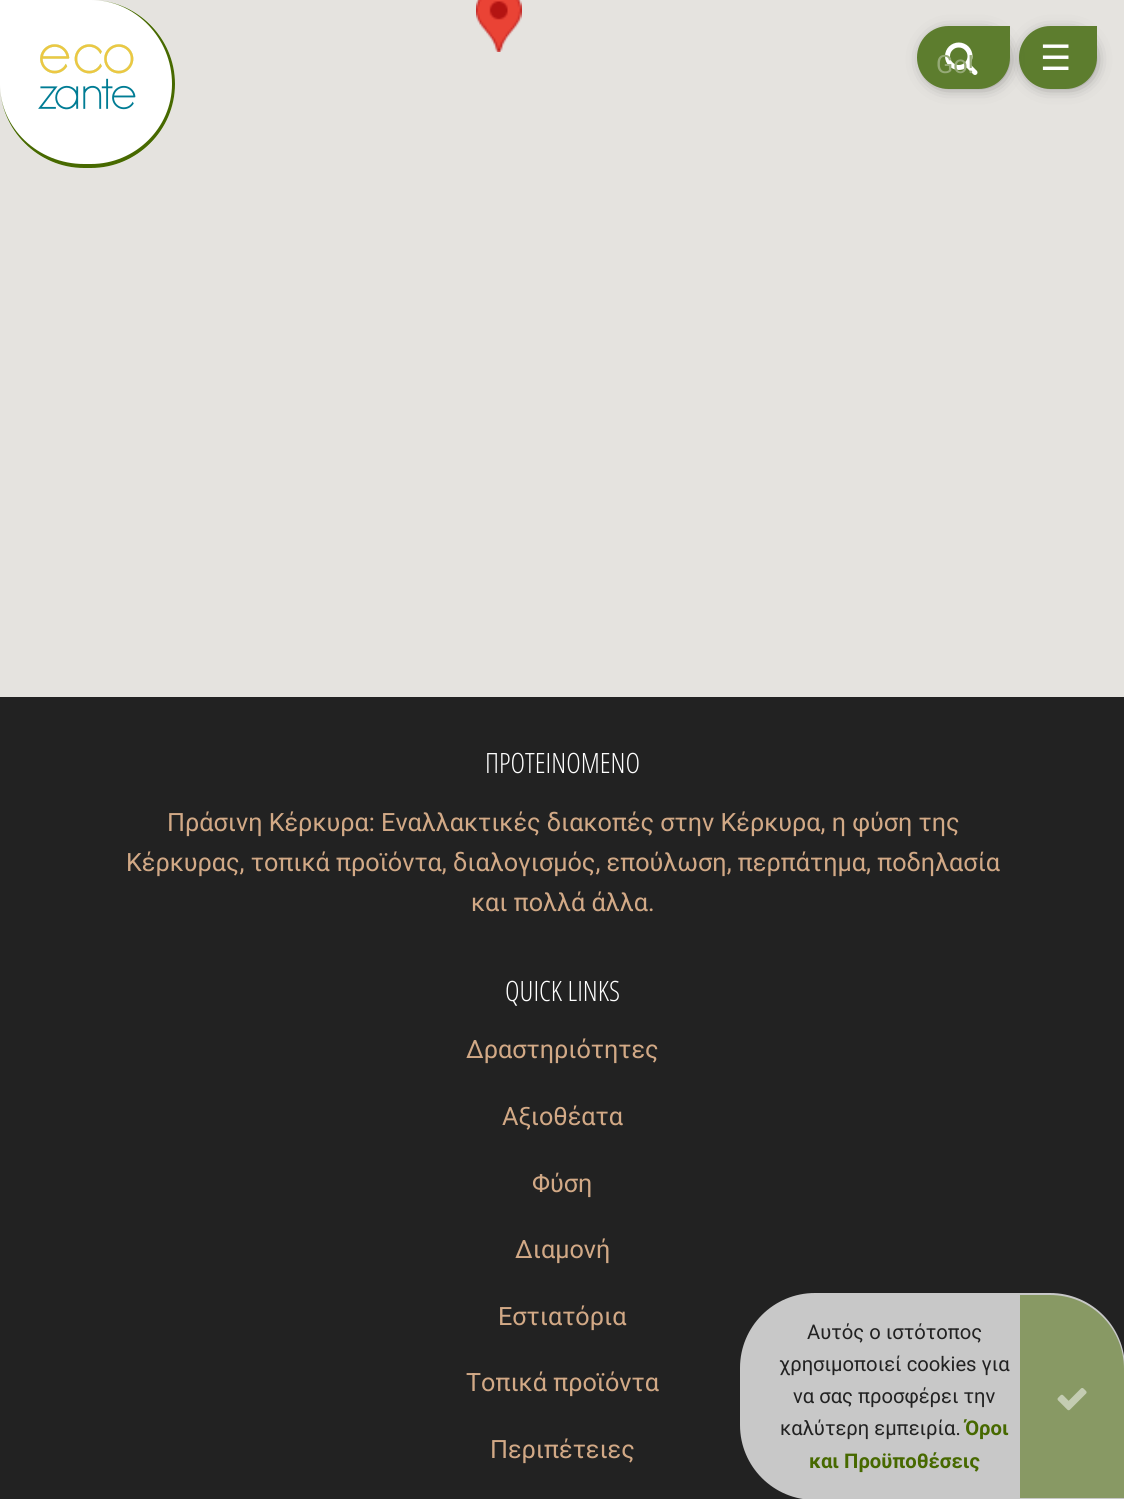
#include <cairo/cairo.h>
#include <math.h>
#include <stddef.h>


static void rounded_rect(cairo_t *cr, double x, double y, double w, double h, double r) {
  cairo_new_sub_path(cr);
  cairo_arc(cr, x + w - r, y + h - r, r, 0, M_PI / 2);
  cairo_arc(cr, x + r, y + h - r, r, M_PI / 2, M_PI);
  cairo_arc(cr, x + r, y + r, r, M_PI, 1.5 * M_PI);
  cairo_arc(cr, x + w - r, y + r, r, 1.5 * M_PI, 2 * M_PI);
  cairo_close_path(cr);
}

static void draw_shadow(cairo_t *cr, double x, double y, double w, double h, double r, double blur, double alpha) {
  cairo_push_group_with_content(cr, CAIRO_CONTENT_ALPHA);
  cairo_set_operator(cr, CAIRO_OPERATOR_SOURCE);
  for (int i = 15; i >= -15 && fmin(w, h) + blur * i / 3 > 0; i -= 2) {
    double e = blur * i / 6;
    cairo_set_source_rgba(cr, 0, 0, 0, alpha * erfc((i - 1) / 8.5) / 2);
    rounded_rect(cr, x - e, y - e, w + 2 * e, h + 2 * e, fmax(0, fmin(r + e + blur * .6, fmin(w, h) / 2 + e)));
    cairo_fill(cr);
  }
  cairo_pattern_t *soft = cairo_pop_group(cr);
  cairo_mask(cr, soft);
  cairo_pattern_destroy(soft);
}

static void draw_image(cairo_t *cr, const char *path, double x, double y, double w, double h) {
  cairo_surface_t *image = cairo_image_surface_create_from_png(path);
  cairo_save(cr);
  cairo_set_source_surface(cr, image, x, y);
  cairo_rectangle(cr, x, y, w, h);
  cairo_fill(cr);
  cairo_restore(cr);
  cairo_surface_destroy(image);
}

static void draw(cairo_t *cr) {
  cairo_set_source_rgb(cr, 34 / 255.0, 34 / 255.0, 34 / 255.0);
  cairo_paint(cr);
  cairo_set_source_rgb(cr, 229 / 255.0, 227 / 255.0, 223 / 255.0);
  cairo_rectangle(cr, 0, 0, 1124, 697);
  cairo_fill(cr);
  draw_image(cr, "images/1.png", 476, 0, 46, 52);
  cairo_set_source_rgb(cr, 1, 1, 1);
  cairo_new_path(cr);
  cairo_move_to(cr, 0, 0);
  cairo_line_to(cr, 91, 0);
  cairo_curve_to(cr, 137.5, 0, 175, 37.5, 175, 84);
  cairo_curve_to(cr, 175, 130.5, 137.5, 168, 91, 168);
  cairo_line_to(cr, 84, 168);
  cairo_curve_to(cr, 37.5, 168, 0, 130.5, 0, 84);
  cairo_close_path(cr);
  cairo_fill(cr);
  cairo_set_source_rgb(cr, 71 / 255.0, 105 / 255.0, 0);
  cairo_set_fill_rule(cr, CAIRO_FILL_RULE_EVEN_ODD);
  cairo_new_path(cr);
  cairo_move_to(cr, 0, 0);
  cairo_line_to(cr, 91, 0);
  cairo_curve_to(cr, 137, 0, 175, 38, 175, 84);
  cairo_curve_to(cr, 175, 130, 137, 168, 91, 168);
  cairo_line_to(cr, 84, 168);
  cairo_curve_to(cr, 38, 168, 0, 130, 0, 84);
  cairo_close_path(cr);
  cairo_move_to(cr, 0, 0);
  cairo_line_to(cr, 91, 0);
  cairo_curve_to(cr, 135, 0, 172, 38, 172, 84);
  cairo_curve_to(cr, 172, 128, 135, 164, 91, 164);
  cairo_line_to(cr, 84, 164);
  cairo_curve_to(cr, 38, 164, 0, 128, 0, 84);
  cairo_close_path(cr);
  cairo_fill(cr);
  draw_image(cr, "images/2.png", 38, 44, 98, 66);
  cairo_set_source_rgb(cr, 51 / 255.0, 51 / 255.0, 51 / 255.0);
  draw_shadow(cr, 1029, 37, 61, 45, 22.5, 9, 1);
  cairo_set_source_rgb(cr, 93 / 255.0, 125 / 255.0, 46 / 255.0);
  cairo_new_path(cr);
  cairo_move_to(cr, 1050.5, 26);
  cairo_line_to(cr, 1097, 26);
  cairo_line_to(cr, 1097, 57.5);
  cairo_curve_to(cr, 1097, 75, 1083, 89, 1065.5, 89);
  cairo_line_to(cr, 1050.5, 89);
  cairo_curve_to(cr, 1033, 89, 1019, 75, 1019, 57.5);
  cairo_curve_to(cr, 1019, 40, 1033, 26, 1050.5, 26);
  cairo_close_path(cr);
  cairo_fill(cr);
  cairo_set_source_rgb(cr, 51 / 255.0, 51 / 255.0, 51 / 255.0);
  draw_shadow(cr, 928, 37, 75, 45, 22.5, 9, 1);
  cairo_set_source_rgb(cr, 93 / 255.0, 125 / 255.0, 46 / 255.0);
  cairo_new_path(cr);
  cairo_move_to(cr, 948.5, 26);
  cairo_line_to(cr, 1010, 26);
  cairo_line_to(cr, 1010, 57.5);
  cairo_curve_to(cr, 1010, 75, 996, 89, 978.5, 89);
  cairo_line_to(cr, 948.5, 89);
  cairo_curve_to(cr, 931, 89, 917, 75, 917, 57.5);
  cairo_curve_to(cr, 917, 40, 931, 26, 948.5, 26);
  cairo_close_path(cr);
  cairo_fill(cr);
  draw_image(cr, "images/3.png", 945, 42, 33, 33);
  cairo_set_source_rgb(cr, 200 / 255.0, 200 / 255.0, 200 / 255.0);
  cairo_new_path(cr);
  cairo_move_to(cr, 815, 1293);
  cairo_line_to(cr, 1050, 1293);
  cairo_curve_to(cr, 1091.5, 1293, 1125, 1326.5, 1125, 1368);
  cairo_line_to(cr, 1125, 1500);
  cairo_line_to(cr, 815, 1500);
  cairo_curve_to(cr, 773.5, 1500, 740, 1466.5, 740, 1425);
  cairo_line_to(cr, 740, 1368);
  cairo_curve_to(cr, 740, 1326.5, 773.5, 1293, 815, 1293);
  cairo_close_path(cr);
  cairo_fill(cr);
  cairo_set_source_rgb(cr, 136 / 255.0, 153 / 255.0, 100 / 255.0);
  cairo_new_path(cr);
  cairo_move_to(cr, 1020, 1295);
  cairo_line_to(cr, 1050, 1295);
  cairo_curve_to(cr, 1091, 1295, 1124, 1328, 1124, 1369);
  cairo_line_to(cr, 1124, 1498);
  cairo_line_to(cr, 1020, 1498);
  cairo_close_path(cr);
  cairo_fill(cr);
  draw_image(cr, "images/4.png", 1057, 1388, 30, 23);
  cairo_select_font_face(cr, "Roboto", CAIRO_FONT_SLANT_NORMAL, CAIRO_FONT_WEIGHT_NORMAL);
  cairo_set_font_size(cr, 25.2);
  cairo_set_source_rgb(cr, 150 / 255.0, 170 / 255.0, 119 / 255.0);
  cairo_move_to(cr, 936, 73);
  cairo_show_text(cr, "Go!");
  cairo_select_font_face(cr, "DejaVu Sans", CAIRO_FONT_SLANT_NORMAL, CAIRO_FONT_WEIGHT_NORMAL);
  cairo_set_font_size(cr, 35);
  cairo_set_source_rgb(cr, 1, 1, 1);
  cairo_move_to(cr, 1040, 70);
  cairo_show_text(cr, "☰");
  cairo_select_font_face(cr, "Open Sans Condensed Light", CAIRO_FONT_SLANT_NORMAL, CAIRO_FONT_WEIGHT_NORMAL);
  cairo_set_font_size(cr, 28);
  cairo_move_to(cr, 485, 773);
  cairo_show_text(cr, "ΠΡΟΤΕΙΝΟΜΕΝΟ");
  cairo_select_font_face(cr, "Roboto", CAIRO_FONT_SLANT_NORMAL, CAIRO_FONT_WEIGHT_NORMAL);
  cairo_set_font_size(cr, 25.2);
  cairo_set_source_rgb(cr, 210 / 255.0, 169 / 255.0, 134 / 255.0);
  cairo_move_to(cr, 167, 831);
  cairo_show_text(cr, "Πράσινη Κέρκυρα: Εναλλακτικές διακοπές στην Κέρκυρα, η φύση της");
  cairo_move_to(cr, 126, 871);
  cairo_show_text(cr, "Κέρκυρας, τοπικά προϊόντα, διαλογισμός, επούλωση, περπάτημα, ποδηλασία");
  cairo_move_to(cr, 471, 911);
  cairo_show_text(cr, "και πολλά άλλα.");
  cairo_select_font_face(cr, "Open Sans Condensed Light", CAIRO_FONT_SLANT_NORMAL, CAIRO_FONT_WEIGHT_NORMAL);
  cairo_set_font_size(cr, 28);
  cairo_set_source_rgb(cr, 1, 1, 1);
  cairo_move_to(cr, 505, 1001);
  cairo_show_text(cr, "QUICK LINKS");
  cairo_select_font_face(cr, "Roboto", CAIRO_FONT_SLANT_NORMAL, CAIRO_FONT_WEIGHT_NORMAL);
  cairo_set_font_size(cr, 25.2);
  cairo_set_source_rgb(cr, 210 / 255.0, 169 / 255.0, 134 / 255.0);
  cairo_move_to(cr, 466, 1058);
  cairo_show_text(cr, "Δραστηριότητες");
  cairo_move_to(cr, 502, 1125);
  cairo_show_text(cr, "Αξιοθέατα");
  cairo_move_to(cr, 532, 1192);
  cairo_show_text(cr, "Φύση");
  cairo_move_to(cr, 515, 1258);
  cairo_show_text(cr, "Διαμονή");
  cairo_move_to(cr, 498, 1325);
  cairo_show_text(cr, "Εστιατόρια");
  cairo_move_to(cr, 466, 1391);
  cairo_show_text(cr, "Τοπικά προϊόντα");
  cairo_move_to(cr, 490, 1458);
  cairo_show_text(cr, "Περιπέτειες");
  cairo_set_font_size(cr, 20.2);
  cairo_set_source_rgb(cr, 34 / 255.0, 34 / 255.0, 34 / 255.0);
  cairo_move_to(cr, 807, 1339);
  cairo_show_text(cr, "Αυτός ο ιστότοπος");
  cairo_move_to(cr, 779, 1371);
  cairo_show_text(cr, "χρησιμοποιεί cookies για");
  cairo_move_to(cr, 793, 1403);
  cairo_show_text(cr, "να σας προσφέρει την");
  cairo_move_to(cr, 780, 1435);
  cairo_show_text(cr, "καλύτερη εμπειρία.");
  cairo_select_font_face(cr, "Roboto", CAIRO_FONT_SLANT_NORMAL, CAIRO_FONT_WEIGHT_BOLD);
  cairo_set_source_rgb(cr, 71 / 255.0, 105 / 255.0, 0);
  cairo_move_to(cr, 965, 1435);
  cairo_show_text(cr, "Όροι");
  cairo_move_to(cr, 809, 1468);
  cairo_show_text(cr, "και Προϋποθέσεις");
}

int main(void) {
  cairo_surface_t *surface = cairo_image_surface_create(CAIRO_FORMAT_RGB24, 1124, 1499);
  cairo_t *cr = cairo_create(surface);
  cairo_font_options_t *options = cairo_font_options_create();
  cairo_font_options_set_hint_metrics(options, CAIRO_HINT_METRICS_OFF);
  cairo_font_options_set_hint_style(options, CAIRO_HINT_STYLE_NONE);
  cairo_set_font_options(cr, options);
  cairo_set_miter_limit(cr, 4);
  draw(cr);
  cairo_surface_write_to_png(surface, "out.png");
  cairo_font_options_destroy(options);
  cairo_destroy(cr);
  cairo_surface_destroy(surface);
  return 0;
}
